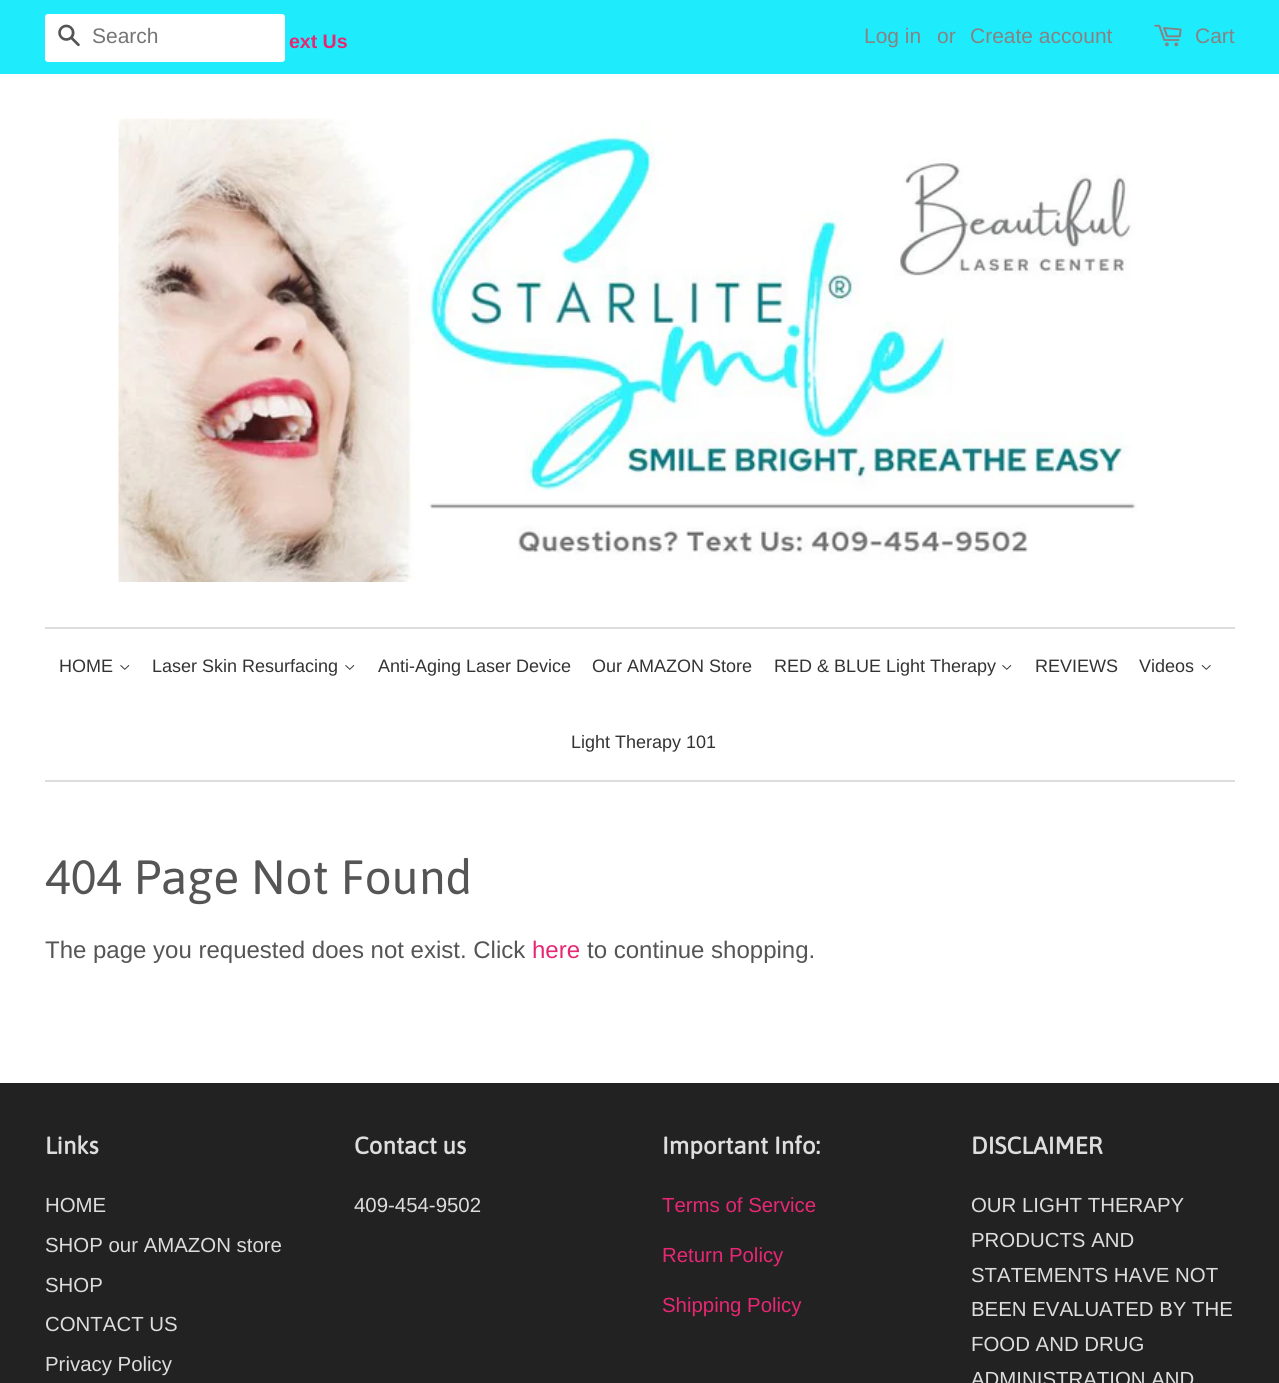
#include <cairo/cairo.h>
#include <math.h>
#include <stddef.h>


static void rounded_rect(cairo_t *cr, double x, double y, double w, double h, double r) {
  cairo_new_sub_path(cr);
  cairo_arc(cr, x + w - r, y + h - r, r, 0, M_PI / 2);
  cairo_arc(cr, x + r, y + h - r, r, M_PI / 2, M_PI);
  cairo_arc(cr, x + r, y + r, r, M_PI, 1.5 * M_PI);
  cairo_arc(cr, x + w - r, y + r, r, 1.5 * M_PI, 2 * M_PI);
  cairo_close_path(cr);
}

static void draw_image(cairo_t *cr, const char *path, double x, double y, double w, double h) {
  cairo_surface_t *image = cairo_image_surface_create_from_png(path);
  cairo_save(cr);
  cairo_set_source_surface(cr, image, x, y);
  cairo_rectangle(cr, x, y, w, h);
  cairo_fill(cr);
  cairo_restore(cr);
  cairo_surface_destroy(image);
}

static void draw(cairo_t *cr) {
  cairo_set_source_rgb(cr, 1, 1, 1);
  cairo_paint(cr);
  cairo_set_source_rgb(cr, 30 / 255.0, 235 / 255.0, 252 / 255.0);
  cairo_rectangle(cr, 0, 0, 1279, 74);
  cairo_fill(cr);
  cairo_set_source_rgb(cr, 1, 1, 1);
  rounded_rect(cr, 45, 14, 240, 48, 3);
  cairo_fill(cr);
  draw_image(cr, "images/1.png", 58, 24, 22, 23);
  draw_image(cr, "images/2.png", 1154, 24, 28, 23);
  draw_image(cr, "images/3.png", 118, 118, 1019, 464);
  cairo_set_source_rgb(cr, 221 / 255.0, 221 / 255.0, 221 / 255.0);
  cairo_rectangle(cr, 45, 627, 1190, 2);
  cairo_fill(cr);
  cairo_rectangle(cr, 45, 780, 1190, 2);
  cairo_fill(cr);
  draw_image(cr, "images/4.png", 120, 665, 10, 5);
  draw_image(cr, "images/4.png", 345, 665, 10, 5);
  draw_image(cr, "images/4.png", 1002, 665, 10, 5);
  draw_image(cr, "images/5.png", 1201, 665, 10, 5);
  cairo_set_source_rgb(cr, 34 / 255.0, 34 / 255.0, 34 / 255.0);
  cairo_rectangle(cr, 0, 1083, 1279, 300);
  cairo_fill(cr);
  cairo_select_font_face(cr, "Liberation Sans", CAIRO_FONT_SLANT_NORMAL, CAIRO_FONT_WEIGHT_NORMAL);
  cairo_set_font_size(cr, 21);
  cairo_set_source_rgb(cr, 117 / 255.0, 117 / 255.0, 117 / 255.0);
  cairo_move_to(cr, 92, 43);
  cairo_show_text(cr, "Search");
  cairo_set_source_rgb(cr, 133 / 255.0, 131 / 255.0, 131 / 255.0);
  cairo_move_to(cr, 864, 43);
  cairo_show_text(cr, "Log in");
  cairo_move_to(cr, 937, 43);
  cairo_show_text(cr, "or");
  cairo_move_to(cr, 970, 43);
  cairo_show_text(cr, "Create account");
  cairo_move_to(cr, 1195, 43);
  cairo_show_text(cr, "Cart");
  cairo_set_font_size(cr, 18);
  cairo_set_source_rgb(cr, 51 / 255.0, 51 / 255.0, 51 / 255.0);
  cairo_move_to(cr, 59, 672);
  cairo_show_text(cr, "HOME");
  cairo_move_to(cr, 152, 672);
  cairo_show_text(cr, "Laser Skin Resurfacing");
  cairo_move_to(cr, 378, 672);
  cairo_show_text(cr, "Anti-Aging Laser Device");
  cairo_move_to(cr, 592, 672);
  cairo_show_text(cr, "Our AMAZON Store");
  cairo_move_to(cr, 774, 672);
  cairo_show_text(cr, "RED & BLUE Light Therapy");
  cairo_move_to(cr, 1035, 672);
  cairo_show_text(cr, "REVIEWS");
  cairo_move_to(cr, 1139, 672);
  cairo_show_text(cr, "Videos");
  cairo_move_to(cr, 571, 748);
  cairo_show_text(cr, "Light Therapy 101");
  cairo_select_font_face(cr, "Liberation Sans", CAIRO_FONT_SLANT_NORMAL, CAIRO_FONT_WEIGHT_BOLD);
  cairo_set_font_size(cr, 19.5);
  cairo_set_source_rgb(cr, 231 / 255.0, 39 / 255.0, 116 / 255.0);
  cairo_move_to(cr, 289, 48);
  cairo_show_text(cr, "ext Us");
  cairo_select_font_face(cr, "Asap", CAIRO_FONT_SLANT_NORMAL, CAIRO_FONT_WEIGHT_NORMAL);
  cairo_set_font_size(cr, 48);
  cairo_set_source_rgb(cr, 85 / 255.0, 85 / 255.0, 85 / 255.0);
  cairo_move_to(cr, 45, 894);
  cairo_show_text(cr, "404 Page Not Found");
  cairo_select_font_face(cr, "Liberation Sans", CAIRO_FONT_SLANT_NORMAL, CAIRO_FONT_WEIGHT_NORMAL);
  cairo_set_font_size(cr, 24);
  cairo_move_to(cr, 45, 958);
  cairo_show_text(cr, "The page you requested does not exist. Click");
  cairo_set_source_rgb(cr, 231 / 255.0, 39 / 255.0, 116 / 255.0);
  cairo_move_to(cr, 532, 958);
  cairo_show_text(cr, "here");
  cairo_set_source_rgb(cr, 85 / 255.0, 85 / 255.0, 85 / 255.0);
  cairo_move_to(cr, 587, 958);
  cairo_show_text(cr, "to continue shopping.");
  cairo_select_font_face(cr, "Asap", CAIRO_FONT_SLANT_NORMAL, CAIRO_FONT_WEIGHT_BOLD);
  cairo_set_source_rgb(cr, 221 / 255.0, 221 / 255.0, 221 / 255.0);
  cairo_move_to(cr, 45, 1154);
  cairo_show_text(cr, "Links");
  cairo_select_font_face(cr, "Liberation Sans", CAIRO_FONT_SLANT_NORMAL, CAIRO_FONT_WEIGHT_NORMAL);
  cairo_set_font_size(cr, 20.4);
  cairo_move_to(cr, 45, 1212);
  cairo_show_text(cr, "HOME");
  cairo_move_to(cr, 45, 1252);
  cairo_show_text(cr, "SHOP our AMAZON store");
  cairo_move_to(cr, 45, 1292);
  cairo_show_text(cr, "SHOP");
  cairo_move_to(cr, 45, 1331);
  cairo_show_text(cr, "CONTACT US");
  cairo_move_to(cr, 45, 1371);
  cairo_show_text(cr, "Privacy Policy");
  cairo_select_font_face(cr, "Asap", CAIRO_FONT_SLANT_NORMAL, CAIRO_FONT_WEIGHT_BOLD);
  cairo_set_font_size(cr, 24);
  cairo_move_to(cr, 354, 1154);
  cairo_show_text(cr, "Contact us");
  cairo_select_font_face(cr, "Liberation Sans", CAIRO_FONT_SLANT_NORMAL, CAIRO_FONT_WEIGHT_NORMAL);
  cairo_set_font_size(cr, 20.4);
  cairo_move_to(cr, 354, 1212);
  cairo_show_text(cr, "409-454-9502");
  cairo_select_font_face(cr, "Asap", CAIRO_FONT_SLANT_NORMAL, CAIRO_FONT_WEIGHT_BOLD);
  cairo_set_font_size(cr, 24);
  cairo_move_to(cr, 662, 1154);
  cairo_show_text(cr, "Important Info:");
  cairo_select_font_face(cr, "Liberation Sans", CAIRO_FONT_SLANT_NORMAL, CAIRO_FONT_WEIGHT_NORMAL);
  cairo_set_font_size(cr, 20.4);
  cairo_set_source_rgb(cr, 231 / 255.0, 39 / 255.0, 116 / 255.0);
  cairo_move_to(cr, 662, 1212);
  cairo_show_text(cr, "Terms of Service");
  cairo_move_to(cr, 662, 1262);
  cairo_show_text(cr, "Return Policy");
  cairo_move_to(cr, 662, 1312);
  cairo_show_text(cr, "Shipping Policy");
  cairo_select_font_face(cr, "Asap", CAIRO_FONT_SLANT_NORMAL, CAIRO_FONT_WEIGHT_BOLD);
  cairo_set_font_size(cr, 24);
  cairo_set_source_rgb(cr, 221 / 255.0, 221 / 255.0, 221 / 255.0);
  cairo_move_to(cr, 971, 1154);
  cairo_show_text(cr, "DISCLAIMER");
  cairo_select_font_face(cr, "Liberation Sans", CAIRO_FONT_SLANT_NORMAL, CAIRO_FONT_WEIGHT_NORMAL);
  cairo_set_font_size(cr, 20.4);
  cairo_move_to(cr, 971, 1212);
  cairo_show_text(cr, "OUR LIGHT THERAPY");
  cairo_move_to(cr, 971, 1247);
  cairo_show_text(cr, "PRODUCTS AND");
  cairo_move_to(cr, 971, 1282);
  cairo_show_text(cr, "STATEMENTS HAVE NOT");
  cairo_move_to(cr, 971, 1316);
  cairo_show_text(cr, "BEEN EVALUATED BY THE");
  cairo_move_to(cr, 971, 1351);
  cairo_show_text(cr, "FOOD AND DRUG");
  cairo_move_to(cr, 971, 1386);
  cairo_show_text(cr, "ADMINISTRATION AND");
}

int main(void) {
  cairo_surface_t *surface = cairo_image_surface_create(CAIRO_FORMAT_RGB24, 1279, 1383);
  cairo_t *cr = cairo_create(surface);
  cairo_font_options_t *options = cairo_font_options_create();
  cairo_font_options_set_hint_metrics(options, CAIRO_HINT_METRICS_OFF);
  cairo_font_options_set_hint_style(options, CAIRO_HINT_STYLE_NONE);
  cairo_set_font_options(cr, options);
  cairo_set_miter_limit(cr, 4);
  draw(cr);
  cairo_surface_write_to_png(surface, "out.png");
  cairo_font_options_destroy(options);
  cairo_destroy(cr);
  cairo_surface_destroy(surface);
  return 0;
}
